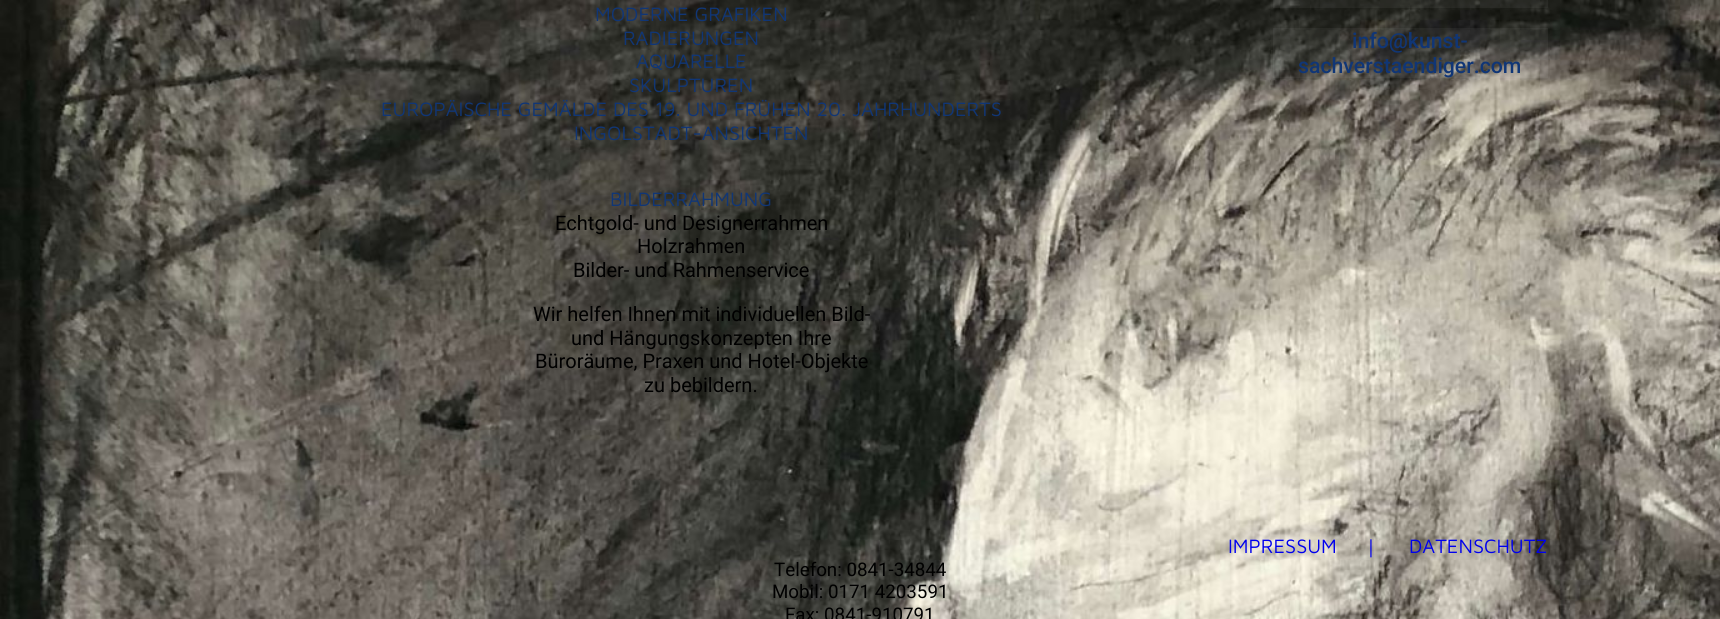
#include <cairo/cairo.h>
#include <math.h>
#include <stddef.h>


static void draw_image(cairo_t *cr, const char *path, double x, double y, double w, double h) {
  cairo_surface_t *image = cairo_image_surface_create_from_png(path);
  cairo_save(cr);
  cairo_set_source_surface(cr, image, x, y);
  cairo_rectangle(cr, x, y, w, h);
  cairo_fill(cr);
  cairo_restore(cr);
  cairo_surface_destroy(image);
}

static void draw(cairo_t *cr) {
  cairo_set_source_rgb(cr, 1, 1, 1);
  cairo_paint(cr);
  draw_image(cr, "images/1.png", 0, 0, 1720, 619);
  cairo_set_source_rgba(cr, 1, 1, 1, 0.05);
  cairo_rectangle(cr, 1273, 0, 275, 8);
  cairo_fill(cr);
  cairo_rectangle(cr, 1273, 28, 275, 50);
  cairo_fill(cr);
  cairo_select_font_face(cr, "Maven Pro", CAIRO_FONT_SLANT_NORMAL, CAIRO_FONT_WEIGHT_NORMAL);
  cairo_set_font_size(cr, 20);
  cairo_set_source_rgb(cr, 16 / 255.0, 54 / 255.0, 118 / 255.0);
  cairo_move_to(cr, 595, 21);
  cairo_show_text(cr, "MODERNE GRAFIKEN");
  cairo_move_to(cr, 623, 45);
  cairo_show_text(cr, "RADIERUNGEN");
  cairo_move_to(cr, 636, 68);
  cairo_show_text(cr, "AQUARELLE");
  cairo_move_to(cr, 629, 92);
  cairo_show_text(cr, "SKULPTUREN");
  cairo_move_to(cr, 381, 116);
  cairo_show_text(cr, "EUROPÄISCHE GEMÄLDE DES 19. UND FRÜHEN 20. JAHRHUNDERTS");
  cairo_move_to(cr, 574, 140);
  cairo_show_text(cr, "INGOLSTADT-ANSICHTEN");
  cairo_move_to(cr, 610, 206);
  cairo_show_text(cr, "BILDERRAHMUNG");
  cairo_select_font_face(cr, "Roboto", CAIRO_FONT_SLANT_NORMAL, CAIRO_FONT_WEIGHT_NORMAL);
  cairo_set_source_rgb(cr, 0, 0, 0);
  cairo_move_to(cr, 555, 230);
  cairo_show_text(cr, "Echtgold- und Designerrahmen");
  cairo_move_to(cr, 637, 253);
  cairo_show_text(cr, "Holzrahmen");
  cairo_move_to(cr, 573, 277);
  cairo_show_text(cr, "Bilder- und Rahmenservice");
  cairo_move_to(cr, 533, 321);
  cairo_show_text(cr, "Wir helfen Ihnen mit individuellen Bild-");
  cairo_move_to(cr, 571, 345);
  cairo_show_text(cr, "und Hängungskonzepten Ihre");
  cairo_move_to(cr, 535, 368);
  cairo_show_text(cr, "Büroräume, Praxen und Hotel-Objekte");
  cairo_move_to(cr, 644, 392);
  cairo_show_text(cr, "zu bebildern.");
  cairo_select_font_face(cr, "Roboto Medium", CAIRO_FONT_SLANT_NORMAL, CAIRO_FONT_WEIGHT_NORMAL);
  cairo_set_font_size(cr, 21.25);
  cairo_set_source_rgb(cr, 16 / 255.0, 54 / 255.0, 118 / 255.0);
  cairo_move_to(cr, 1352, 48);
  cairo_show_text(cr, "info@kunst-");
  cairo_move_to(cr, 1298, 73);
  cairo_show_text(cr, "sachverstaendiger.com");
  cairo_select_font_face(cr, "Maven Pro", CAIRO_FONT_SLANT_NORMAL, CAIRO_FONT_WEIGHT_NORMAL);
  cairo_set_font_size(cr, 20);
  cairo_set_source_rgb(cr, 0, 0, 238 / 255.0);
  cairo_move_to(cr, 1228, 553);
  cairo_show_text(cr, "IMPRESSUM");
  cairo_select_font_face(cr, "Open Sans", CAIRO_FONT_SLANT_NORMAL, CAIRO_FONT_WEIGHT_NORMAL);
  cairo_set_font_size(cr, 18);
  cairo_move_to(cr, 1366, 553);
  cairo_show_text(cr, "|");
  cairo_select_font_face(cr, "Maven Pro", CAIRO_FONT_SLANT_NORMAL, CAIRO_FONT_WEIGHT_NORMAL);
  cairo_set_font_size(cr, 20);
  cairo_move_to(cr, 1409, 553);
  cairo_show_text(cr, "DATENSCHUTZ");
  cairo_select_font_face(cr, "Roboto", CAIRO_FONT_SLANT_NORMAL, CAIRO_FONT_WEIGHT_NORMAL);
  cairo_set_font_size(cr, 18.75);
  cairo_set_source_rgb(cr, 0, 0, 0);
  cairo_move_to(cr, 774, 576);
  cairo_show_text(cr, "Telefon: 0841-34844");
  cairo_move_to(cr, 772, 598);
  cairo_show_text(cr, "Mobil: 0171 4203591");
  cairo_move_to(cr, 785, 621);
  cairo_show_text(cr, "Fax: 0841-910791");
}

int main(void) {
  cairo_surface_t *surface = cairo_image_surface_create(CAIRO_FORMAT_RGB24, 1720, 619);
  cairo_t *cr = cairo_create(surface);
  cairo_font_options_t *options = cairo_font_options_create();
  cairo_font_options_set_hint_metrics(options, CAIRO_HINT_METRICS_OFF);
  cairo_font_options_set_hint_style(options, CAIRO_HINT_STYLE_NONE);
  cairo_set_font_options(cr, options);
  cairo_set_miter_limit(cr, 4);
  draw(cr);
  cairo_surface_write_to_png(surface, "out.png");
  cairo_font_options_destroy(options);
  cairo_destroy(cr);
  cairo_surface_destroy(surface);
  return 0;
}
